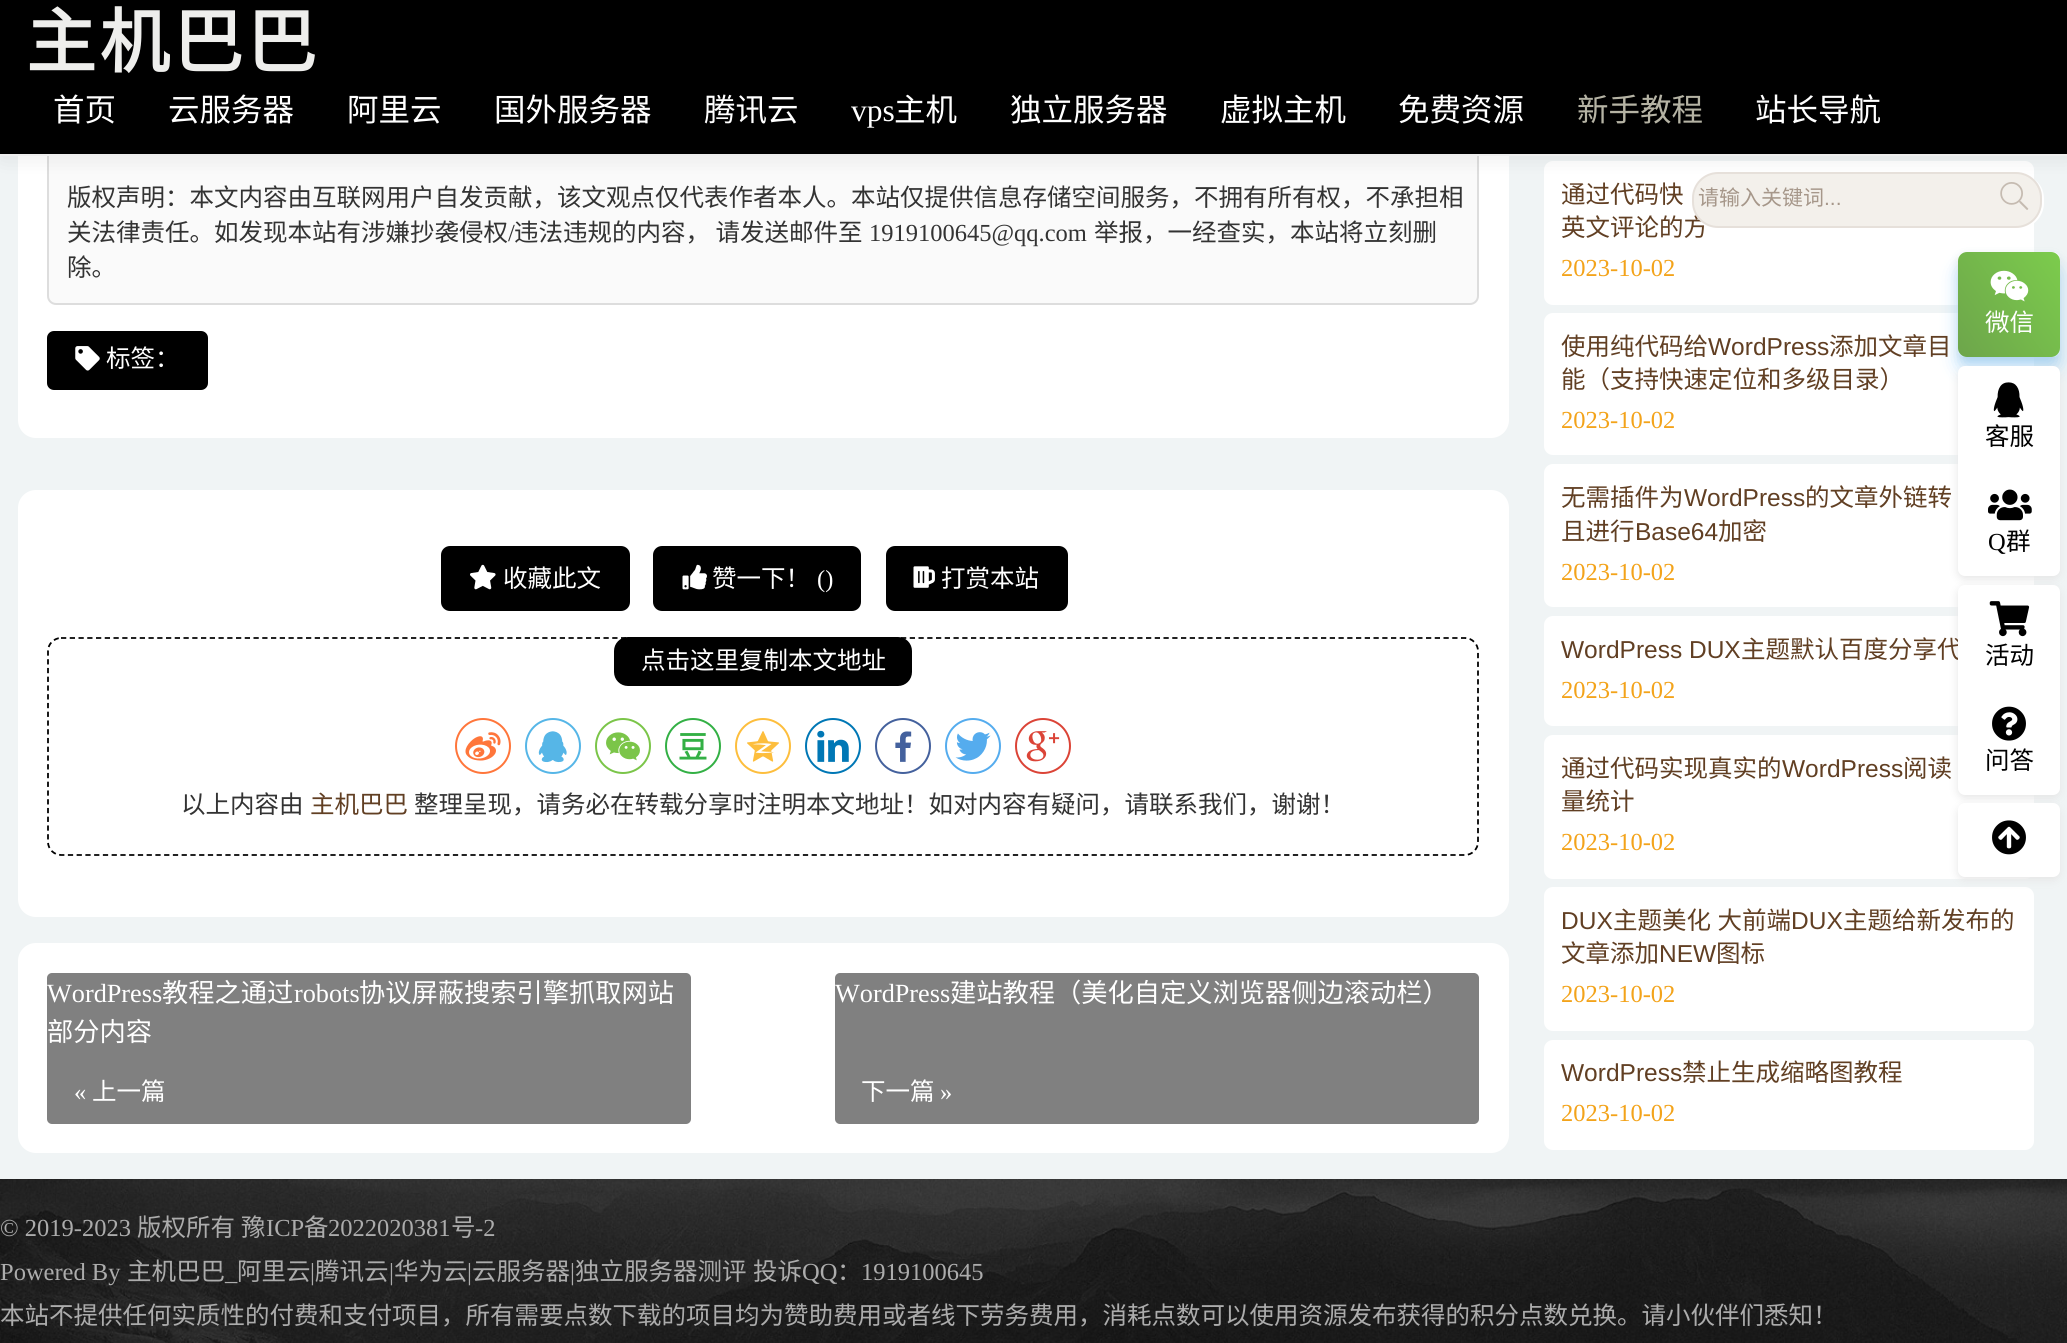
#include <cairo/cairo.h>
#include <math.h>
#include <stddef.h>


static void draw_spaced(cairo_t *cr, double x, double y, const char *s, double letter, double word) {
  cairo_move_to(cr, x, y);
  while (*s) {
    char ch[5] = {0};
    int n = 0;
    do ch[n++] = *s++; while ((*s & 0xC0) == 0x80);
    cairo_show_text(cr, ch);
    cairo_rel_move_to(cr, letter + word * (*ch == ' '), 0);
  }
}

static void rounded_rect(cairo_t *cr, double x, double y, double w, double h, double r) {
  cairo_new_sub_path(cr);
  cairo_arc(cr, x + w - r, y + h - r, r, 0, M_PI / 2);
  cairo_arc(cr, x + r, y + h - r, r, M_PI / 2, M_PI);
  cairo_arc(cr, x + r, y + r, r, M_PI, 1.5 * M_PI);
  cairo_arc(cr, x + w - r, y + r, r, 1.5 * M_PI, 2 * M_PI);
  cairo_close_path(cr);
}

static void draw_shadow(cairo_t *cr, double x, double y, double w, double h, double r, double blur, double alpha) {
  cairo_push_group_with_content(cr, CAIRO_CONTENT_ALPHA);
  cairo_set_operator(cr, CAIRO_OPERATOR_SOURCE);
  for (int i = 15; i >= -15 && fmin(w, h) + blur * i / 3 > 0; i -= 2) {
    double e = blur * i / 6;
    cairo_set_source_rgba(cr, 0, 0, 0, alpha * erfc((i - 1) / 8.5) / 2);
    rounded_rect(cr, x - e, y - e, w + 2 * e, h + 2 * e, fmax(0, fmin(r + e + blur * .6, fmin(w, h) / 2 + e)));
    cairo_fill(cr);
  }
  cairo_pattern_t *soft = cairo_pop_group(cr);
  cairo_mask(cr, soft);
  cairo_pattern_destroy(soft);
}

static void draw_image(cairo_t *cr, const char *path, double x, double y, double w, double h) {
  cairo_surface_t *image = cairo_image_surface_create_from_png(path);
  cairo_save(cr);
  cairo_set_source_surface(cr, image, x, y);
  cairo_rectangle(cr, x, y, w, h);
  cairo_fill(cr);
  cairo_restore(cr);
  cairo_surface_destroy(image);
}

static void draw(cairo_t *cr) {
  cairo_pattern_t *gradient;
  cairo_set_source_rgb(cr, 240 / 255.0, 244 / 255.0, 245 / 255.0);
  cairo_paint(cr);
  cairo_set_source_rgb(cr, 1, 1, 1);
  rounded_rect(cr, 18, -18, 1491, 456, 18);
  cairo_fill(cr);
  cairo_set_source_rgb(cr, 250 / 255.0, 250 / 255.0, 250 / 255.0);
  rounded_rect(cr, 48, 61, 1430, 243, 8);
  cairo_fill_preserve(cr);
  cairo_set_source_rgb(cr, 221 / 255.0, 221 / 255.0, 221 / 255.0);
  cairo_stroke(cr);
  cairo_set_source_rgb(cr, 1, 1, 1);
  rounded_rect(cr, 1544, 161, 490, 144, 9);
  cairo_fill(cr);
  cairo_set_source_rgb(cr, 0, 0, 0);
  draw_shadow(cr, 2, 2, 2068, 156, 0, 10.5, 0.08);
  cairo_set_source_rgb(cr, 0, 0, 0);
  cairo_rectangle(cr, 0, 0, 2067, 154);
  cairo_fill(cr);
  cairo_set_source_rgb(cr, 238 / 255.0, 238 / 255.0, 238 / 255.0);
  cairo_rectangle(cr, 0, 154, 2067, 2);
  cairo_fill(cr);
  cairo_set_source_rgb(cr, 0, 0, 0);
  rounded_rect(cr, 47, 331, 161, 59, 7);
  cairo_fill(cr);
  draw_image(cr, "images/2.png", 75, 346, 25, 25);
  cairo_set_source_rgb(cr, 1, 1, 1);
  rounded_rect(cr, 18, 490, 1491, 427, 18);
  cairo_fill(cr);
  cairo_set_source_rgb(cr, 0, 0, 0);
  rounded_rect(cr, 441, 546, 189, 65, 9);
  cairo_fill(cr);
  draw_image(cr, "images/3.png", 470, 564, 26, 26);
  rounded_rect(cr, 653, 546, 208, 65, 9);
  cairo_fill(cr);
  draw_image(cr, "images/4.png", 682, 564, 25, 26);
  rounded_rect(cr, 886, 546, 182, 65, 9);
  cairo_fill(cr);
  draw_image(cr, "images/5.png", 913, 566, 22, 22);
  cairo_new_path(cr);
  cairo_move_to(cr, 61, 638);
  cairo_line_to(cr, 1465, 638);
  cairo_curve_to(cr, 1472, 638, 1478, 644, 1478, 651);
  cairo_line_to(cr, 1478, 842);
  cairo_curve_to(cr, 1478, 849, 1472, 855, 1465, 855);
  cairo_line_to(cr, 61, 855);
  cairo_curve_to(cr, 54, 855, 48, 849, 48, 842);
  cairo_line_to(cr, 48, 651);
  cairo_curve_to(cr, 48, 644, 54, 638, 61, 638);
  cairo_close_path(cr);
  cairo_set_line_width(cr, 1.8);
  cairo_set_dash(cr, (double[]){5.25, 3.5}, 2, 0);
  cairo_stroke(cr);
  rounded_rect(cr, 614, 637, 298, 49, 14);
  cairo_fill(cr);
  cairo_arc(cr, 483, 746, 27, 0, 2 * M_PI);
  cairo_set_source_rgb(cr, 1, 118 / 255.0, 59 / 255.0);
  cairo_set_line_width(cr, 2);
  cairo_set_dash(cr, NULL, 0, 0);
  cairo_stroke(cr);
  draw_image(cr, "images/6.png", 465, 732, 36, 29);
  cairo_arc(cr, 553, 746, 27, 0, 2 * M_PI);
  cairo_set_source_rgb(cr, 86 / 255.0, 182 / 255.0, 231 / 255.0);
  cairo_stroke(cr);
  draw_image(cr, "images/7.png", 538, 731, 29, 32);
  cairo_arc(cr, 623, 746, 27, 0, 2 * M_PI);
  cairo_set_source_rgb(cr, 123 / 255.0, 197 / 255.0, 73 / 255.0);
  cairo_stroke(cr);
  draw_image(cr, "images/8.png", 606, 732, 34, 29);
  cairo_arc(cr, 693, 746, 27, 0, 2 * M_PI);
  cairo_set_source_rgb(cr, 51 / 255.0, 176 / 255.0, 69 / 255.0);
  cairo_stroke(cr);
  draw_image(cr, "images/9.png", 679, 733, 28, 27);
  cairo_arc(cr, 763, 746, 27, 0, 2 * M_PI);
  cairo_set_source_rgb(cr, 253 / 255.0, 190 / 255.0, 61 / 255.0);
  cairo_stroke(cr);
  draw_image(cr, "images/10.png", 747, 731, 32, 31);
  cairo_arc(cr, 833, 746, 27, 0, 2 * M_PI);
  cairo_set_source_rgb(cr, 0, 119 / 255.0, 181 / 255.0);
  cairo_stroke(cr);
  draw_image(cr, "images/11.png", 817, 730, 32, 32);
  cairo_arc(cr, 903, 746, 27, 0, 2 * M_PI);
  cairo_set_source_rgb(cr, 68 / 255.0, 97 / 255.0, 157 / 255.0);
  cairo_stroke(cr);
  draw_image(cr, "images/12.png", 895, 731, 17, 31);
  cairo_arc(cr, 973, 746, 27, 0, 2 * M_PI);
  cairo_set_source_rgb(cr, 85 / 255.0, 172 / 255.0, 238 / 255.0);
  cairo_stroke(cr);
  draw_image(cr, "images/13.png", 955, 732, 36, 29);
  cairo_arc(cr, 1043, 746, 27, 0, 2 * M_PI);
  cairo_set_source_rgb(cr, 219 / 255.0, 68 / 255.0, 55 / 255.0);
  cairo_stroke(cr);
  draw_image(cr, "images/14.png", 1026, 731, 34, 31);
  cairo_set_source_rgb(cr, 1, 1, 1);
  rounded_rect(cr, 18, 943, 1491, 210, 18);
  cairo_fill(cr);
  cairo_set_source_rgb(cr, 128 / 255.0, 128 / 255.0, 128 / 255.0);
  rounded_rect(cr, 47, 973, 644, 151, 5);
  cairo_fill(cr);
  rounded_rect(cr, 835, 973, 644, 151, 5);
  cairo_fill(cr);
  cairo_set_source_rgb(cr, 1, 1, 1);
  rounded_rect(cr, 1544, 313, 490, 142, 9);
  cairo_fill(cr);
  rounded_rect(cr, 1544, 464, 490, 143, 9);
  cairo_fill(cr);
  rounded_rect(cr, 1544, 616, 490, 110, 9);
  cairo_fill(cr);
  rounded_rect(cr, 1544, 735, 490, 144, 9);
  cairo_fill(cr);
  rounded_rect(cr, 1544, 887, 490, 144, 9);
  cairo_fill(cr);
  rounded_rect(cr, 1544, 1040, 490, 110, 9);
  cairo_fill(cr);
  cairo_set_source_rgb(cr, 230 / 255.0, 230 / 255.0, 230 / 255.0);
  draw_shadow(cr, 1958, 256, 102, 105, 7, 4.5, 1);
  cairo_set_source_rgb(cr, 1, 1, 1);
  rounded_rect(cr, 1958, 252, 102, 105, 7);
  cairo_fill(cr);
  cairo_set_source_rgb(cr, 32 / 255.0, 160 / 255.0, 1);
  draw_shadow(cr, 1958, 266, 102, 105, 9, 9, 0.3);
  gradient = cairo_pattern_create_linear(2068, 263, 1950, 346);
  cairo_pattern_add_color_stop_rgba(gradient, 0, 124 / 255.0, 204 / 255.0, 76 / 255.0, 1);
  cairo_pattern_add_color_stop_rgba(gradient, 1, 109 / 255.0, 165 / 255.0, 75 / 255.0, 1);
  cairo_set_source(cr, gradient);
  cairo_pattern_destroy(gradient);
  rounded_rect(cr, 1958, 252, 102, 105, 9);
  cairo_fill(cr);
  draw_image(cr, "images/15.png", 1990, 270, 39, 32);
  cairo_set_source_rgb(cr, 230 / 255.0, 230 / 255.0, 230 / 255.0);
  draw_shadow(cr, 1958, 369, 102, 210, 7, 4.5, 1);
  cairo_set_source_rgb(cr, 1, 1, 1);
  rounded_rect(cr, 1958, 366, 102, 210, 7);
  cairo_fill(cr);
  draw_image(cr, "images/16.png", 1993, 382, 31, 36);
  draw_image(cr, "images/17.png", 1988, 489, 44, 32);
  cairo_set_source_rgb(cr, 230 / 255.0, 230 / 255.0, 230 / 255.0);
  draw_shadow(cr, 1958, 588, 102, 210, 7, 4.5, 1);
  draw_image(cr, "images/21.png", 0, 1179, 2067, 164);
  cairo_select_font_face(cr, "Noto Sans CJK SC", CAIRO_FONT_SLANT_NORMAL, CAIRO_FONT_WEIGHT_BOLD);
  cairo_set_font_size(cr, 70);
  cairo_set_source_rgb(cr, 238 / 255.0, 238 / 255.0, 236 / 255.0);
  draw_spaced(cr, 26, 67, "主机巴巴", 3.5, 0);
  cairo_select_font_face(cr, "Noto Sans CJK SC", CAIRO_FONT_SLANT_NORMAL, CAIRO_FONT_WEIGHT_NORMAL);
  cairo_set_font_size(cr, 31.5);
  cairo_set_source_rgb(cr, 1, 1, 1);
  cairo_move_to(cr, 53, 121);
  cairo_show_text(cr, "首页");
  cairo_move_to(cr, 168, 121);
  cairo_show_text(cr, "云服务器");
  cairo_move_to(cr, 347, 121);
  cairo_show_text(cr, "阿里云");
  cairo_move_to(cr, 494, 121);
  cairo_show_text(cr, "国外服务器");
  cairo_move_to(cr, 704, 121);
  cairo_show_text(cr, "腾讯云");
  cairo_select_font_face(cr, "Liberation Serif", CAIRO_FONT_SLANT_NORMAL, CAIRO_FONT_WEIGHT_NORMAL);
  cairo_move_to(cr, 851, 121);
  cairo_show_text(cr, "vps");
  cairo_select_font_face(cr, "Noto Sans CJK SC", CAIRO_FONT_SLANT_NORMAL, CAIRO_FONT_WEIGHT_NORMAL);
  cairo_move_to(cr, 894, 121);
  cairo_show_text(cr, "主机");
  cairo_move_to(cr, 1010, 121);
  cairo_show_text(cr, "独立服务器");
  cairo_move_to(cr, 1220, 121);
  cairo_show_text(cr, "虚拟主机");
  cairo_move_to(cr, 1398, 121);
  cairo_show_text(cr, "免费资源");
  cairo_set_source_rgb(cr, 181 / 255.0, 179 / 255.0, 164 / 255.0);
  cairo_move_to(cr, 1577, 121);
  cairo_show_text(cr, "新手教程");
  cairo_set_source_rgb(cr, 1, 1, 1);
  cairo_move_to(cr, 1755, 121);
  cairo_show_text(cr, "站长导航");
  cairo_set_font_size(cr, 24.5);
  cairo_set_source_rgb(cr, 51 / 255.0, 51 / 255.0, 51 / 255.0);
  cairo_move_to(cr, 67, 206);
  cairo_show_text(cr, "版权声明：本文内容由互联网用户自发贡献，该文观点仅代表作者本人。本站仅提供信息存储空间服务，不拥有所有权，不承担相");
  cairo_move_to(cr, 67, 241);
  cairo_show_text(cr, "关法律责任。如发现本站有涉嫌抄袭侵权");
  cairo_select_font_face(cr, "Liberation Serif", CAIRO_FONT_SLANT_NORMAL, CAIRO_FONT_WEIGHT_NORMAL);
  cairo_move_to(cr, 508, 241);
  cairo_show_text(cr, "/");
  cairo_select_font_face(cr, "Noto Sans CJK SC", CAIRO_FONT_SLANT_NORMAL, CAIRO_FONT_WEIGHT_NORMAL);
  cairo_move_to(cr, 514, 241);
  cairo_show_text(cr, "违法违规的内容， 请发送邮件至");
  cairo_select_font_face(cr, "Liberation Serif", CAIRO_FONT_SLANT_NORMAL, CAIRO_FONT_WEIGHT_NORMAL);
  cairo_move_to(cr, 869, 241);
  cairo_show_text(cr, "1919100645@qq.com");
  cairo_select_font_face(cr, "Noto Sans CJK SC", CAIRO_FONT_SLANT_NORMAL, CAIRO_FONT_WEIGHT_NORMAL);
  cairo_move_to(cr, 1094, 241);
  cairo_show_text(cr, "举报，一经查实，本站将立刻删");
  cairo_move_to(cr, 67, 276);
  cairo_show_text(cr, "除。");
  cairo_set_source_rgb(cr, 1, 1, 1);
  cairo_move_to(cr, 106, 367);
  cairo_show_text(cr, "标签：");
  cairo_move_to(cr, 503, 587);
  cairo_show_text(cr, "收藏此文");
  cairo_move_to(cr, 712, 587);
  cairo_show_text(cr, "赞一下！");
  cairo_select_font_face(cr, "Liberation Serif", CAIRO_FONT_SLANT_NORMAL, CAIRO_FONT_WEIGHT_NORMAL);
  cairo_move_to(cr, 817, 587);
  cairo_show_text(cr, "()");
  cairo_select_font_face(cr, "Noto Sans CJK SC", CAIRO_FONT_SLANT_NORMAL, CAIRO_FONT_WEIGHT_NORMAL);
  cairo_move_to(cr, 941, 587);
  cairo_show_text(cr, "打赏本站");
  cairo_move_to(cr, 641, 669);
  cairo_show_text(cr, "点击这里复制本文地址");
  cairo_set_source_rgb(cr, 51 / 255.0, 51 / 255.0, 51 / 255.0);
  cairo_move_to(cr, 181, 813);
  cairo_show_text(cr, "以上内容由");
  cairo_set_source_rgb(cr, 97 / 255.0, 63 / 255.0, 35 / 255.0);
  cairo_move_to(cr, 310, 813);
  cairo_show_text(cr, "主机巴巴");
  cairo_set_source_rgb(cr, 51 / 255.0, 51 / 255.0, 51 / 255.0);
  cairo_move_to(cr, 414, 813);
  cairo_show_text(cr, "整理呈现，请务必在转载分享时注明本文地址！如对内容有疑问，请联系我们，谢谢！");
  cairo_select_font_face(cr, "Liberation Serif", CAIRO_FONT_SLANT_NORMAL, CAIRO_FONT_WEIGHT_NORMAL);
  cairo_set_font_size(cr, 26.25);
  cairo_set_source_rgb(cr, 1, 1, 1);
  cairo_move_to(cr, 47, 1002);
  cairo_show_text(cr, "WordPress");
  cairo_select_font_face(cr, "Noto Sans CJK SC", CAIRO_FONT_SLANT_NORMAL, CAIRO_FONT_WEIGHT_NORMAL);
  cairo_move_to(cr, 162, 1002);
  cairo_show_text(cr, "教程之通过");
  cairo_select_font_face(cr, "Liberation Serif", CAIRO_FONT_SLANT_NORMAL, CAIRO_FONT_WEIGHT_NORMAL);
  cairo_move_to(cr, 294, 1002);
  cairo_show_text(cr, "robots");
  cairo_select_font_face(cr, "Noto Sans CJK SC", CAIRO_FONT_SLANT_NORMAL, CAIRO_FONT_WEIGHT_NORMAL);
  cairo_move_to(cr, 359, 1002);
  cairo_show_text(cr, "协议屏蔽搜索引擎抓取网站");
  cairo_move_to(cr, 47, 1041);
  cairo_show_text(cr, "部分内容");
  cairo_select_font_face(cr, "Liberation Serif", CAIRO_FONT_SLANT_NORMAL, CAIRO_FONT_WEIGHT_NORMAL);
  cairo_set_font_size(cr, 24.5);
  cairo_move_to(cr, 74, 1100);
  cairo_show_text(cr, "«");
  cairo_select_font_face(cr, "Noto Sans CJK SC", CAIRO_FONT_SLANT_NORMAL, CAIRO_FONT_WEIGHT_NORMAL);
  cairo_move_to(cr, 92, 1100);
  cairo_show_text(cr, "上一篇");
  cairo_select_font_face(cr, "Liberation Serif", CAIRO_FONT_SLANT_NORMAL, CAIRO_FONT_WEIGHT_NORMAL);
  cairo_set_font_size(cr, 26.25);
  cairo_move_to(cr, 835, 1002);
  cairo_show_text(cr, "WordPress");
  cairo_select_font_face(cr, "Noto Sans CJK SC", CAIRO_FONT_SLANT_NORMAL, CAIRO_FONT_WEIGHT_NORMAL);
  cairo_move_to(cr, 950, 1002);
  cairo_show_text(cr, "建站教程（美化自定义浏览器侧边滚动栏）");
  cairo_set_font_size(cr, 24.5);
  cairo_move_to(cr, 861, 1100);
  cairo_show_text(cr, "下一篇");
  cairo_select_font_face(cr, "Liberation Serif", CAIRO_FONT_SLANT_NORMAL, CAIRO_FONT_WEIGHT_NORMAL);
  cairo_move_to(cr, 940, 1100);
  cairo_show_text(cr, "»");
  cairo_select_font_face(cr, "Noto Sans CJK SC", CAIRO_FONT_SLANT_NORMAL, CAIRO_FONT_WEIGHT_NORMAL);
  cairo_set_source_rgb(cr, 97 / 255.0, 63 / 255.0, 35 / 255.0);
  cairo_move_to(cr, 1561, 203);
  cairo_show_text(cr, "通过代码快");
  cairo_move_to(cr, 1561, 236);
  cairo_show_text(cr, "英文评论的方");
  cairo_set_source_rgb(cr, 1, 1, 1);
  cairo_new_path(cr);
  cairo_move_to(cr, 1701, 221);
  cairo_curve_to(cr, 1706, 226, 1713, 229, 1720, 229);
  cairo_line_to(cr, 2018, 229);
  cairo_curve_to(cr, 2032, 229, 2044, 217, 2044, 203);
  cairo_line_to(cr, 2044, 199);
  cairo_curve_to(cr, 2044, 190, 2040, 183, 2033, 178);
  cairo_curve_to(cr, 2039, 183, 2042, 190, 2042, 198);
  cairo_line_to(cr, 2042, 201);
  cairo_curve_to(cr, 2042, 216, 2030, 228, 2016, 228);
  cairo_line_to(cr, 1718, 228);
  cairo_curve_to(cr, 1712, 228, 1706, 225, 1701, 221);
  cairo_close_path(cr);
  cairo_fill(cr);
  cairo_set_source_rgb(cr, 243 / 255.0, 240 / 255.0, 235 / 255.0);
  rounded_rect(cr, 1693, 173, 348, 54, 25);
  cairo_fill_preserve(cr);
  cairo_set_source_rgb(cr, 230 / 255.0, 224 / 255.0, 218 / 255.0);
  cairo_stroke(cr);
  cairo_select_font_face(cr, "Liberation Sans", CAIRO_FONT_SLANT_NORMAL, CAIRO_FONT_WEIGHT_NORMAL);
  cairo_set_font_size(cr, 21);
  cairo_set_source_rgb(cr, 166 / 255.0, 151 / 255.0, 138 / 255.0);
  cairo_move_to(cr, 1824, 205);
  cairo_show_text(cr, "...");
  cairo_select_font_face(cr, "Noto Sans CJK SC", CAIRO_FONT_SLANT_NORMAL, CAIRO_FONT_WEIGHT_NORMAL);
  cairo_move_to(cr, 1698, 205);
  cairo_show_text(cr, "请输入关键词");
  draw_image(cr, "images/1.png", 2000, 182, 29, 28);
  cairo_select_font_face(cr, "Liberation Serif", CAIRO_FONT_SLANT_NORMAL, CAIRO_FONT_WEIGHT_NORMAL);
  cairo_set_font_size(cr, 24.5);
  cairo_set_source_rgb(cr, 243 / 255.0, 163 / 255.0, 26 / 255.0);
  cairo_move_to(cr, 1561, 276);
  cairo_show_text(cr, "2023-10-02");
  cairo_select_font_face(cr, "Noto Sans CJK SC", CAIRO_FONT_SLANT_NORMAL, CAIRO_FONT_WEIGHT_NORMAL);
  cairo_set_source_rgb(cr, 97 / 255.0, 63 / 255.0, 35 / 255.0);
  cairo_move_to(cr, 1561, 355);
  cairo_show_text(cr, "使用纯代码给");
  cairo_select_font_face(cr, "Liberation Sans", CAIRO_FONT_SLANT_NORMAL, CAIRO_FONT_WEIGHT_NORMAL);
  cairo_move_to(cr, 1708, 355);
  cairo_show_text(cr, "WordPress");
  cairo_select_font_face(cr, "Noto Sans CJK SC", CAIRO_FONT_SLANT_NORMAL, CAIRO_FONT_WEIGHT_NORMAL);
  cairo_move_to(cr, 1829, 355);
  cairo_show_text(cr, "添加文章目");
  cairo_move_to(cr, 1561, 388);
  cairo_show_text(cr, "能（支持快速定位和多级目录）");
  cairo_select_font_face(cr, "Liberation Serif", CAIRO_FONT_SLANT_NORMAL, CAIRO_FONT_WEIGHT_NORMAL);
  cairo_set_source_rgb(cr, 243 / 255.0, 163 / 255.0, 26 / 255.0);
  cairo_move_to(cr, 1561, 428);
  cairo_show_text(cr, "2023-10-02");
  cairo_select_font_face(cr, "Noto Sans CJK SC", CAIRO_FONT_SLANT_NORMAL, CAIRO_FONT_WEIGHT_NORMAL);
  cairo_set_source_rgb(cr, 97 / 255.0, 63 / 255.0, 35 / 255.0);
  cairo_move_to(cr, 1561, 506);
  cairo_show_text(cr, "无需插件为");
  cairo_select_font_face(cr, "Liberation Sans", CAIRO_FONT_SLANT_NORMAL, CAIRO_FONT_WEIGHT_NORMAL);
  cairo_move_to(cr, 1684, 506);
  cairo_show_text(cr, "WordPress");
  cairo_select_font_face(cr, "Noto Sans CJK SC", CAIRO_FONT_SLANT_NORMAL, CAIRO_FONT_WEIGHT_NORMAL);
  cairo_move_to(cr, 1805, 506);
  cairo_show_text(cr, "的文章外链转");
  cairo_move_to(cr, 1561, 540);
  cairo_show_text(cr, "且进行");
  cairo_select_font_face(cr, "Liberation Sans", CAIRO_FONT_SLANT_NORMAL, CAIRO_FONT_WEIGHT_NORMAL);
  cairo_move_to(cr, 1635, 540);
  cairo_show_text(cr, "Base64");
  cairo_select_font_face(cr, "Noto Sans CJK SC", CAIRO_FONT_SLANT_NORMAL, CAIRO_FONT_WEIGHT_NORMAL);
  cairo_move_to(cr, 1718, 540);
  cairo_show_text(cr, "加密");
  cairo_select_font_face(cr, "Liberation Serif", CAIRO_FONT_SLANT_NORMAL, CAIRO_FONT_WEIGHT_NORMAL);
  cairo_set_source_rgb(cr, 243 / 255.0, 163 / 255.0, 26 / 255.0);
  cairo_move_to(cr, 1561, 580);
  cairo_show_text(cr, "2023-10-02");
  cairo_select_font_face(cr, "Liberation Sans", CAIRO_FONT_SLANT_NORMAL, CAIRO_FONT_WEIGHT_NORMAL);
  cairo_set_source_rgb(cr, 97 / 255.0, 63 / 255.0, 35 / 255.0);
  cairo_move_to(cr, 1561, 658);
  cairo_show_text(cr, "WordPress DUX");
  cairo_select_font_face(cr, "Noto Sans CJK SC", CAIRO_FONT_SLANT_NORMAL, CAIRO_FONT_WEIGHT_NORMAL);
  cairo_move_to(cr, 1741, 658);
  cairo_show_text(cr, "主题默认百度分享代");
  cairo_select_font_face(cr, "Liberation Serif", CAIRO_FONT_SLANT_NORMAL, CAIRO_FONT_WEIGHT_NORMAL);
  cairo_set_source_rgb(cr, 243 / 255.0, 163 / 255.0, 26 / 255.0);
  cairo_move_to(cr, 1561, 698);
  cairo_show_text(cr, "2023-10-02");
  cairo_select_font_face(cr, "Noto Sans CJK SC", CAIRO_FONT_SLANT_NORMAL, CAIRO_FONT_WEIGHT_NORMAL);
  cairo_set_source_rgb(cr, 97 / 255.0, 63 / 255.0, 35 / 255.0);
  cairo_move_to(cr, 1561, 777);
  cairo_show_text(cr, "通过代码实现真实的");
  cairo_select_font_face(cr, "Liberation Sans", CAIRO_FONT_SLANT_NORMAL, CAIRO_FONT_WEIGHT_NORMAL);
  cairo_move_to(cr, 1782, 777);
  cairo_show_text(cr, "WordPress");
  cairo_select_font_face(cr, "Noto Sans CJK SC", CAIRO_FONT_SLANT_NORMAL, CAIRO_FONT_WEIGHT_NORMAL);
  cairo_move_to(cr, 1903, 777);
  cairo_show_text(cr, "阅读");
  cairo_move_to(cr, 1561, 810);
  cairo_show_text(cr, "量统计");
  cairo_select_font_face(cr, "Liberation Serif", CAIRO_FONT_SLANT_NORMAL, CAIRO_FONT_WEIGHT_NORMAL);
  cairo_set_source_rgb(cr, 243 / 255.0, 163 / 255.0, 26 / 255.0);
  cairo_move_to(cr, 1561, 850);
  cairo_show_text(cr, "2023-10-02");
  cairo_select_font_face(cr, "Liberation Sans", CAIRO_FONT_SLANT_NORMAL, CAIRO_FONT_WEIGHT_NORMAL);
  cairo_set_source_rgb(cr, 97 / 255.0, 63 / 255.0, 35 / 255.0);
  cairo_move_to(cr, 1561, 929);
  cairo_show_text(cr, "DUX");
  cairo_select_font_face(cr, "Noto Sans CJK SC", CAIRO_FONT_SLANT_NORMAL, CAIRO_FONT_WEIGHT_NORMAL);
  draw_spaced(cr, 1613, 929, "主题美化 大前端", 0, 1);
  cairo_select_font_face(cr, "Liberation Sans", CAIRO_FONT_SLANT_NORMAL, CAIRO_FONT_WEIGHT_NORMAL);
  cairo_move_to(cr, 1791, 929);
  cairo_show_text(cr, "DUX");
  cairo_select_font_face(cr, "Noto Sans CJK SC", CAIRO_FONT_SLANT_NORMAL, CAIRO_FONT_WEIGHT_NORMAL);
  cairo_move_to(cr, 1843, 929);
  cairo_show_text(cr, "主题给新发布的");
  cairo_move_to(cr, 1561, 962);
  cairo_show_text(cr, "文章添加");
  cairo_select_font_face(cr, "Liberation Sans", CAIRO_FONT_SLANT_NORMAL, CAIRO_FONT_WEIGHT_NORMAL);
  cairo_move_to(cr, 1659, 962);
  cairo_show_text(cr, "NEW");
  cairo_select_font_face(cr, "Noto Sans CJK SC", CAIRO_FONT_SLANT_NORMAL, CAIRO_FONT_WEIGHT_NORMAL);
  cairo_move_to(cr, 1716, 962);
  cairo_show_text(cr, "图标");
  cairo_select_font_face(cr, "Liberation Serif", CAIRO_FONT_SLANT_NORMAL, CAIRO_FONT_WEIGHT_NORMAL);
  cairo_set_source_rgb(cr, 243 / 255.0, 163 / 255.0, 26 / 255.0);
  cairo_move_to(cr, 1561, 1002);
  cairo_show_text(cr, "2023-10-02");
  cairo_select_font_face(cr, "Liberation Sans", CAIRO_FONT_SLANT_NORMAL, CAIRO_FONT_WEIGHT_NORMAL);
  cairo_set_source_rgb(cr, 97 / 255.0, 63 / 255.0, 35 / 255.0);
  cairo_move_to(cr, 1561, 1081);
  cairo_show_text(cr, "WordPress");
  cairo_select_font_face(cr, "Noto Sans CJK SC", CAIRO_FONT_SLANT_NORMAL, CAIRO_FONT_WEIGHT_NORMAL);
  cairo_move_to(cr, 1682, 1081);
  cairo_show_text(cr, "禁止生成缩略图教程");
  cairo_select_font_face(cr, "Liberation Serif", CAIRO_FONT_SLANT_NORMAL, CAIRO_FONT_WEIGHT_NORMAL);
  cairo_set_source_rgb(cr, 243 / 255.0, 163 / 255.0, 26 / 255.0);
  cairo_move_to(cr, 1561, 1121);
  cairo_show_text(cr, "2023-10-02");
  cairo_select_font_face(cr, "Noto Sans CJK SC", CAIRO_FONT_SLANT_NORMAL, CAIRO_FONT_WEIGHT_NORMAL);
  cairo_set_source_rgb(cr, 1, 1, 1);
  cairo_move_to(cr, 1985, 331);
  cairo_show_text(cr, "微信");
  cairo_set_source_rgb(cr, 0, 0, 0);
  cairo_move_to(cr, 1985, 445);
  cairo_show_text(cr, "客服");
  cairo_select_font_face(cr, "Liberation Serif", CAIRO_FONT_SLANT_NORMAL, CAIRO_FONT_WEIGHT_NORMAL);
  cairo_move_to(cr, 1988, 550);
  cairo_show_text(cr, "Q");
  cairo_select_font_face(cr, "Noto Sans CJK SC", CAIRO_FONT_SLANT_NORMAL, CAIRO_FONT_WEIGHT_NORMAL);
  cairo_move_to(cr, 2006, 550);
  cairo_show_text(cr, "群");
  cairo_set_source_rgb(cr, 1, 1, 1);
  rounded_rect(cr, 1958, 585, 102, 210, 7);
  cairo_fill(cr);
  draw_image(cr, "images/18.png", 1989, 601, 41, 36);
  cairo_set_source_rgb(cr, 0, 0, 0);
  cairo_move_to(cr, 1985, 664);
  cairo_show_text(cr, "活动");
  draw_image(cr, "images/19.png", 1992, 706, 34, 35);
  cairo_move_to(cr, 1985, 769);
  cairo_show_text(cr, "问答");
  cairo_set_source_rgb(cr, 230 / 255.0, 230 / 255.0, 230 / 255.0);
  draw_shadow(cr, 1958, 807, 102, 73, 7, 4.5, 1);
  cairo_set_source_rgb(cr, 1, 1, 1);
  rounded_rect(cr, 1958, 803, 102, 74, 7);
  cairo_fill(cr);
  draw_image(cr, "images/20.png", 1992, 820, 34, 35);
  cairo_select_font_face(cr, "Liberation Serif", CAIRO_FONT_SLANT_NORMAL, CAIRO_FONT_WEIGHT_NORMAL);
  cairo_set_source_rgb(cr, 172 / 255.0, 172 / 255.0, 172 / 255.0);
  cairo_move_to(cr, 0, 1236);
  cairo_show_text(cr, "© 2019-2023");
  cairo_select_font_face(cr, "Noto Sans CJK SC", CAIRO_FONT_SLANT_NORMAL, CAIRO_FONT_WEIGHT_NORMAL);
  cairo_move_to(cr, 137, 1236);
  cairo_show_text(cr, "版权所有");
  cairo_move_to(cr, 241, 1236);
  cairo_show_text(cr, "豫");
  cairo_select_font_face(cr, "Liberation Serif", CAIRO_FONT_SLANT_NORMAL, CAIRO_FONT_WEIGHT_NORMAL);
  cairo_move_to(cr, 266, 1236);
  cairo_show_text(cr, "ICP");
  cairo_select_font_face(cr, "Noto Sans CJK SC", CAIRO_FONT_SLANT_NORMAL, CAIRO_FONT_WEIGHT_NORMAL);
  cairo_move_to(cr, 304, 1236);
  cairo_show_text(cr, "备");
  cairo_select_font_face(cr, "Liberation Serif", CAIRO_FONT_SLANT_NORMAL, CAIRO_FONT_WEIGHT_NORMAL);
  cairo_move_to(cr, 328, 1236);
  cairo_show_text(cr, "2022020381");
  cairo_select_font_face(cr, "Noto Sans CJK SC", CAIRO_FONT_SLANT_NORMAL, CAIRO_FONT_WEIGHT_NORMAL);
  cairo_move_to(cr, 451, 1236);
  cairo_show_text(cr, "号");
  cairo_select_font_face(cr, "Liberation Serif", CAIRO_FONT_SLANT_NORMAL, CAIRO_FONT_WEIGHT_NORMAL);
  cairo_move_to(cr, 475, 1236);
  cairo_show_text(cr, "-2");
  cairo_move_to(cr, 0, 1280);
  cairo_show_text(cr, "Powered By");
  cairo_select_font_face(cr, "Noto Sans CJK SC", CAIRO_FONT_SLANT_NORMAL, CAIRO_FONT_WEIGHT_NORMAL);
  cairo_move_to(cr, 127, 1280);
  cairo_show_text(cr, "主机巴巴");
  cairo_move_to(cr, 237, 1280);
  cairo_show_text(cr, "阿里云");
  cairo_select_font_face(cr, "Liberation Serif", CAIRO_FONT_SLANT_NORMAL, CAIRO_FONT_WEIGHT_NORMAL);
  cairo_move_to(cr, 310, 1280);
  cairo_show_text(cr, "|");
  cairo_select_font_face(cr, "Noto Sans CJK SC", CAIRO_FONT_SLANT_NORMAL, CAIRO_FONT_WEIGHT_NORMAL);
  cairo_move_to(cr, 315, 1280);
  cairo_show_text(cr, "腾讯云");
  cairo_select_font_face(cr, "Liberation Serif", CAIRO_FONT_SLANT_NORMAL, CAIRO_FONT_WEIGHT_NORMAL);
  cairo_move_to(cr, 389, 1280);
  cairo_show_text(cr, "|");
  cairo_select_font_face(cr, "Noto Sans CJK SC", CAIRO_FONT_SLANT_NORMAL, CAIRO_FONT_WEIGHT_NORMAL);
  cairo_move_to(cr, 394, 1280);
  cairo_show_text(cr, "华为云");
  cairo_select_font_face(cr, "Liberation Serif", CAIRO_FONT_SLANT_NORMAL, CAIRO_FONT_WEIGHT_NORMAL);
  cairo_move_to(cr, 467, 1280);
  cairo_show_text(cr, "|");
  cairo_select_font_face(cr, "Noto Sans CJK SC", CAIRO_FONT_SLANT_NORMAL, CAIRO_FONT_WEIGHT_NORMAL);
  cairo_move_to(cr, 472, 1280);
  cairo_show_text(cr, "云服务器");
  cairo_select_font_face(cr, "Liberation Serif", CAIRO_FONT_SLANT_NORMAL, CAIRO_FONT_WEIGHT_NORMAL);
  cairo_move_to(cr, 570, 1280);
  cairo_show_text(cr, "|");
  cairo_select_font_face(cr, "Noto Sans CJK SC", CAIRO_FONT_SLANT_NORMAL, CAIRO_FONT_WEIGHT_NORMAL);
  cairo_move_to(cr, 575, 1280);
  cairo_show_text(cr, "独立服务器测评");
  cairo_move_to(cr, 753, 1280);
  cairo_show_text(cr, "投诉");
  cairo_select_font_face(cr, "Liberation Serif", CAIRO_FONT_SLANT_NORMAL, CAIRO_FONT_WEIGHT_NORMAL);
  cairo_move_to(cr, 802, 1280);
  cairo_show_text(cr, "QQ");
  cairo_select_font_face(cr, "Noto Sans CJK SC", CAIRO_FONT_SLANT_NORMAL, CAIRO_FONT_WEIGHT_NORMAL);
  cairo_move_to(cr, 837, 1280);
  cairo_show_text(cr, "：");
  cairo_select_font_face(cr, "Liberation Serif", CAIRO_FONT_SLANT_NORMAL, CAIRO_FONT_WEIGHT_NORMAL);
  cairo_move_to(cr, 861, 1280);
  cairo_show_text(cr, "1919100645");
  cairo_move_to(cr, 225, 1280);
  cairo_show_text(cr, "_");
  cairo_select_font_face(cr, "Noto Sans CJK SC", CAIRO_FONT_SLANT_NORMAL, CAIRO_FONT_WEIGHT_NORMAL);
  cairo_move_to(cr, 0, 1324);
  cairo_show_text(cr, "本站不提供任何实质性的付费和支付项目，所有需要点数下载的项目均为赞助费用或者线下劳务费用，消耗点数可以使用资源发布获得的积分点数兑换。请小伙伴们悉知！");
}

int main(void) {
  cairo_surface_t *surface = cairo_image_surface_create(CAIRO_FORMAT_RGB24, 2067, 1343);
  cairo_t *cr = cairo_create(surface);
  cairo_font_options_t *options = cairo_font_options_create();
  cairo_font_options_set_hint_metrics(options, CAIRO_HINT_METRICS_OFF);
  cairo_font_options_set_hint_style(options, CAIRO_HINT_STYLE_NONE);
  cairo_set_font_options(cr, options);
  cairo_set_miter_limit(cr, 4);
  draw(cr);
  cairo_surface_write_to_png(surface, "out.png");
  cairo_font_options_destroy(options);
  cairo_destroy(cr);
  cairo_surface_destroy(surface);
  return 0;
}
